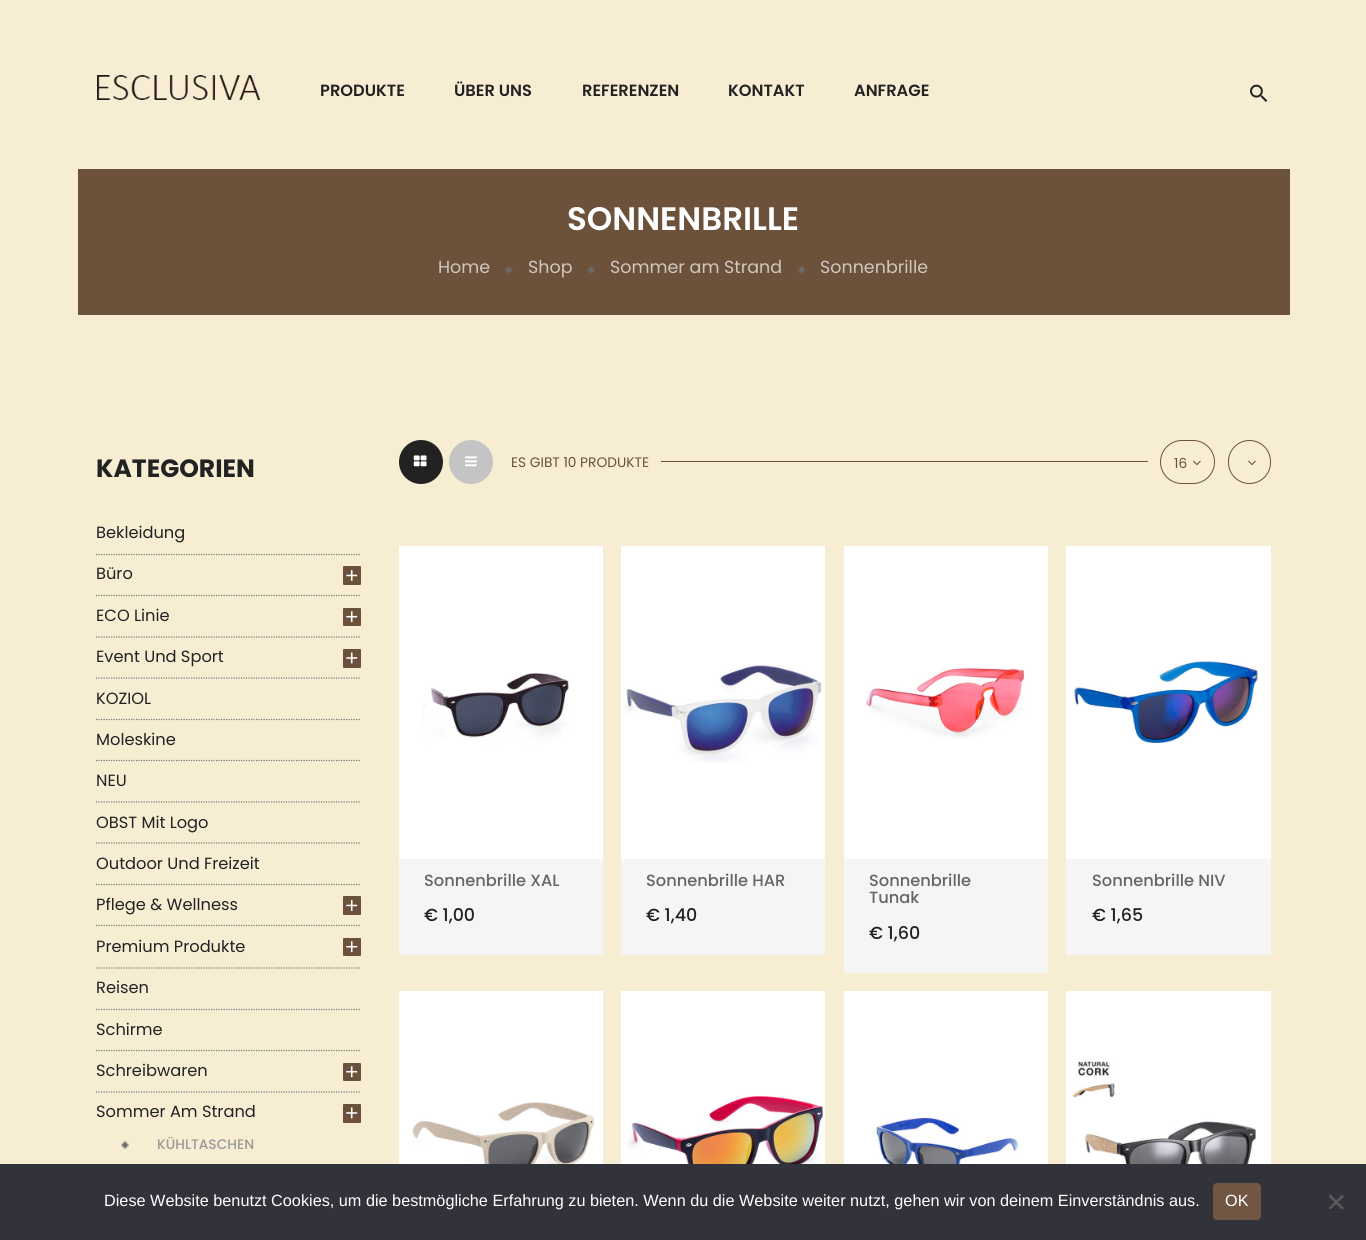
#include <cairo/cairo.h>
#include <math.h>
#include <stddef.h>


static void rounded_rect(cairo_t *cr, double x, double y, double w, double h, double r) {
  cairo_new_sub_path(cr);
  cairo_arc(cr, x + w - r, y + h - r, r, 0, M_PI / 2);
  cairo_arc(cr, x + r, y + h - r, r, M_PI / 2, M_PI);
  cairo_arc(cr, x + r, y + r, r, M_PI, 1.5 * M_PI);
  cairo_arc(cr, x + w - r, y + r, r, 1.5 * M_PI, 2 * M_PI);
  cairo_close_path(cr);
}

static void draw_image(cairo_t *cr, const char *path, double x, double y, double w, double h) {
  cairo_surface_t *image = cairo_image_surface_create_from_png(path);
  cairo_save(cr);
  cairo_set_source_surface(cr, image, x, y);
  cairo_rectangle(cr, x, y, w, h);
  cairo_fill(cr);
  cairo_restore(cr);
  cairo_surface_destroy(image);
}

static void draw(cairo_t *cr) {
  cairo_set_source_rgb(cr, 247 / 255.0, 237 / 255.0, 211 / 255.0);
  cairo_paint(cr);
  draw_image(cr, "images/1.png", 96, 75, 164, 25);
  draw_image(cr, "images/2.png", 1250, 84, 18, 18);
  cairo_set_source_rgb(cr, 108 / 255.0, 81 / 255.0, 59 / 255.0);
  cairo_rectangle(cr, 78, 169, 1212, 146);
  cairo_fill(cr);
  draw_image(cr, "images/3.png", 505, 266, 8, 8);
  draw_image(cr, "images/4.png", 587, 266, 8, 8);
  draw_image(cr, "images/5.png", 797, 266, 8, 8);
  cairo_new_path(cr);
  cairo_move_to(cr, 96, 554.5);
  cairo_line_to(cr, 361, 554.5);
  cairo_set_source_rgb(cr, 121 / 255.0, 121 / 255.0, 121 / 255.0);
  cairo_set_line_width(cr, 1.2);
  cairo_set_dash(cr, (double[]){1.25, 1.25}, 2, 0);
  cairo_stroke(cr);
  cairo_new_path(cr);
  cairo_move_to(cr, 96, 595.5);
  cairo_line_to(cr, 361, 595.5);
  cairo_stroke(cr);
  cairo_set_source_rgb(cr, 107 / 255.0, 80 / 255.0, 59 / 255.0);
  rounded_rect(cr, 343, 566, 18, 19, 1);
  cairo_fill(cr);
  draw_image(cr, "images/6.png", 346, 570, 12, 11);
  cairo_new_path(cr);
  cairo_move_to(cr, 96, 637);
  cairo_line_to(cr, 361, 637);
  cairo_set_source_rgb(cr, 121 / 255.0, 121 / 255.0, 121 / 255.0);
  cairo_stroke(cr);
  cairo_set_source_rgb(cr, 107 / 255.0, 80 / 255.0, 59 / 255.0);
  rounded_rect(cr, 343, 608, 18, 18, 1);
  cairo_fill(cr);
  draw_image(cr, "images/7.png", 346, 611, 12, 12);
  cairo_new_path(cr);
  cairo_move_to(cr, 96, 678);
  cairo_line_to(cr, 361, 678);
  cairo_set_source_rgb(cr, 121 / 255.0, 121 / 255.0, 121 / 255.0);
  cairo_stroke(cr);
  cairo_set_source_rgb(cr, 107 / 255.0, 80 / 255.0, 59 / 255.0);
  rounded_rect(cr, 343, 649, 18, 19, 1);
  cairo_fill(cr);
  draw_image(cr, "images/8.png", 346, 652, 12, 12);
  cairo_new_path(cr);
  cairo_move_to(cr, 96, 719.5);
  cairo_line_to(cr, 361, 719.5);
  cairo_set_source_rgb(cr, 121 / 255.0, 121 / 255.0, 121 / 255.0);
  cairo_stroke(cr);
  cairo_new_path(cr);
  cairo_move_to(cr, 96, 760.5);
  cairo_line_to(cr, 361, 760.5);
  cairo_stroke(cr);
  cairo_new_path(cr);
  cairo_move_to(cr, 96, 802);
  cairo_line_to(cr, 361, 802);
  cairo_stroke(cr);
  cairo_new_path(cr);
  cairo_move_to(cr, 96, 843);
  cairo_line_to(cr, 361, 843);
  cairo_stroke(cr);
  cairo_new_path(cr);
  cairo_move_to(cr, 96, 884.5);
  cairo_line_to(cr, 361, 884.5);
  cairo_stroke(cr);
  cairo_new_path(cr);
  cairo_move_to(cr, 96, 925.5);
  cairo_line_to(cr, 361, 925.5);
  cairo_stroke(cr);
  cairo_set_source_rgb(cr, 107 / 255.0, 80 / 255.0, 59 / 255.0);
  rounded_rect(cr, 343, 896, 18, 19, 1);
  cairo_fill(cr);
  draw_image(cr, "images/6.png", 346, 900, 12, 11);
  cairo_new_path(cr);
  cairo_move_to(cr, 96, 968);
  cairo_line_to(cr, 361, 968);
  cairo_set_source_rgb(cr, 121 / 255.0, 121 / 255.0, 121 / 255.0);
  cairo_stroke(cr);
  cairo_set_source_rgb(cr, 107 / 255.0, 80 / 255.0, 59 / 255.0);
  rounded_rect(cr, 343, 938, 18, 18, 1);
  cairo_fill(cr);
  draw_image(cr, "images/7.png", 346, 941, 12, 12);
  cairo_new_path(cr);
  cairo_move_to(cr, 96, 1009.5);
  cairo_line_to(cr, 361, 1009.5);
  cairo_set_source_rgb(cr, 121 / 255.0, 121 / 255.0, 121 / 255.0);
  cairo_stroke(cr);
  cairo_new_path(cr);
  cairo_move_to(cr, 96, 1050.5);
  cairo_line_to(cr, 361, 1050.5);
  cairo_stroke(cr);
  cairo_new_path(cr);
  cairo_move_to(cr, 96, 1092);
  cairo_line_to(cr, 361, 1092);
  cairo_stroke(cr);
  cairo_set_source_rgb(cr, 107 / 255.0, 80 / 255.0, 59 / 255.0);
  rounded_rect(cr, 343, 1063, 18, 18, 1);
  cairo_fill(cr);
  draw_image(cr, "images/7.png", 346, 1066, 12, 12);
  rounded_rect(cr, 343, 1104, 18, 19, 1);
  cairo_fill(cr);
  draw_image(cr, "images/8.png", 346, 1107, 12, 12);
  draw_image(cr, "images/9.png", 121, 1141, 8, 8);
  cairo_set_source_rgb(cr, 34 / 255.0, 34 / 255.0, 34 / 255.0);
  cairo_arc(cr, 421, 462, 22, 0, 2 * M_PI);
  cairo_fill(cr);
  draw_image(cr, "images/10.png", 413, 455, 14, 12);
  cairo_set_source_rgb(cr, 196 / 255.0, 196 / 255.0, 196 / 255.0);
  cairo_arc(cr, 471, 462, 22, 0, 2 * M_PI);
  cairo_fill(cr);
  draw_image(cr, "images/11.png", 465, 456, 12, 11);
  cairo_set_source_rgb(cr, 107 / 255.0, 80 / 255.0, 59 / 255.0);
  cairo_rectangle(cr, 661, 461, 610, 1);
  cairo_fill(cr);
  cairo_set_source_rgb(cr, 247 / 255.0, 237 / 255.0, 211 / 255.0);
  rounded_rect(cr, 1160.5, 440.5, 54, 43, 21.5);
  cairo_fill_preserve(cr);
  cairo_set_source_rgb(cr, 107 / 255.0, 81 / 255.0, 59 / 255.0);
  cairo_set_line_width(cr, 1);
  cairo_set_dash(cr, NULL, 0, 0);
  cairo_stroke(cr);
  cairo_set_source_rgb(cr, 247 / 255.0, 237 / 255.0, 211 / 255.0);
  cairo_rectangle(cr, 1148, 461, 12, 1);
  cairo_fill(cr);
  draw_image(cr, "images/12.png", 1193, 460, 8, 6);
  cairo_rectangle(cr, 1215, 461, 13, 1);
  cairo_fill(cr);
  rounded_rect(cr, 1228.5, 440.5, 42, 43, 21);
  cairo_fill_preserve(cr);
  cairo_set_source_rgb(cr, 107 / 255.0, 81 / 255.0, 59 / 255.0);
  cairo_stroke(cr);
  draw_image(cr, "images/12.png", 1248, 460, 8, 6);
  cairo_set_source_rgb(cr, 245 / 255.0, 245 / 255.0, 245 / 255.0);
  cairo_rectangle(cr, 399, 859, 204, 96);
  cairo_fill(cr);
  cairo_set_source_rgb(cr, 1, 1, 1);
  cairo_rectangle(cr, 399, 546, 204, 313);
  cairo_fill(cr);
  draw_image(cr, "images/13.png", 422, 673, 147, 72);
  cairo_set_source_rgb(cr, 245 / 255.0, 245 / 255.0, 245 / 255.0);
  cairo_rectangle(cr, 621, 859, 204, 96);
  cairo_fill(cr);
  cairo_set_source_rgb(cr, 1, 1, 1);
  cairo_rectangle(cr, 621, 546, 204, 313);
  cairo_fill(cr);
  draw_image(cr, "images/14.png", 623, 664, 199, 99);
  cairo_set_source_rgb(cr, 245 / 255.0, 245 / 255.0, 245 / 255.0);
  cairo_rectangle(cr, 844, 859, 204, 114);
  cairo_fill(cr);
  cairo_set_source_rgb(cr, 1, 1, 1);
  cairo_rectangle(cr, 844, 546, 204, 313);
  cairo_fill(cr);
  draw_image(cr, "images/15.png", 865, 667, 160, 73);
  cairo_set_source_rgb(cr, 245 / 255.0, 245 / 255.0, 245 / 255.0);
  cairo_rectangle(cr, 1066, 859, 205, 96);
  cairo_fill(cr);
  cairo_set_source_rgb(cr, 1, 1, 1);
  cairo_rectangle(cr, 1066, 546, 205, 313);
  cairo_fill(cr);
  draw_image(cr, "images/16.png", 1074, 661, 184, 83);
  cairo_rectangle(cr, 399, 991, 204, 173);
  cairo_fill(cr);
  draw_image(cr, "images/17.png", 412, 1102, 183, 62);
  cairo_rectangle(cr, 621, 991, 204, 173);
  cairo_fill(cr);
  draw_image(cr, "images/18.png", 627, 1095, 197, 69);
  cairo_rectangle(cr, 844, 991, 204, 173);
  cairo_fill(cr);
  draw_image(cr, "images/19.png", 876, 1117, 143, 47);
  cairo_rectangle(cr, 1066, 991, 205, 173);
  cairo_fill(cr);
  draw_image(cr, "images/20.png", 1072, 1061, 184, 103);
  cairo_set_source_rgb(cr, 50 / 255.0, 50 / 255.0, 58 / 255.0);
  cairo_rectangle(cr, 0, 1164, 1366, 76);
  cairo_fill(cr);
  cairo_set_source_rgb(cr, 112 / 255.0, 86 / 255.0, 67 / 255.0);
  rounded_rect(cr, 1213, 1183, 48, 37, 4);
  cairo_fill(cr);
  cairo_set_source_rgb(cr, 89 / 255.0, 89 / 255.0, 93 / 255.0);
  cairo_new_path(cr);
  cairo_move_to(cr, 1342, 1194.5);
  cairo_line_to(cr, 1344, 1196.5);
  cairo_line_to(cr, 1330.5, 1209.5);
  cairo_line_to(cr, 1328.5, 1208);
  cairo_close_path(cr);
  cairo_fill(cr);
  cairo_new_path(cr);
  cairo_move_to(cr, 1328.5, 1196.5);
  cairo_line_to(cr, 1330.5, 1194.5);
  cairo_line_to(cr, 1344, 1208);
  cairo_line_to(cr, 1342, 1209.5);
  cairo_close_path(cr);
  cairo_fill(cr);
  cairo_select_font_face(cr, "Poppins SemiBold", CAIRO_FONT_SLANT_NORMAL, CAIRO_FONT_WEIGHT_NORMAL);
  cairo_set_font_size(cr, 16.25);
  cairo_set_source_rgb(cr, 34 / 255.0, 34 / 255.0, 34 / 255.0);
  cairo_move_to(cr, 320, 96);
  cairo_show_text(cr, "PRODUKTE");
  cairo_move_to(cr, 454, 96);
  cairo_show_text(cr, "ÜBER UNS");
  cairo_move_to(cr, 582, 96);
  cairo_show_text(cr, "REFERENZEN");
  cairo_move_to(cr, 728, 96);
  cairo_show_text(cr, "KONTAKT");
  cairo_move_to(cr, 854, 96);
  cairo_show_text(cr, "ANFRAGE");
  cairo_set_font_size(cr, 32.5);
  cairo_set_source_rgb(cr, 1, 1, 1);
  cairo_move_to(cr, 567, 230);
  cairo_show_text(cr, "SONNENBRILLE");
  cairo_select_font_face(cr, "Poppins", CAIRO_FONT_SLANT_NORMAL, CAIRO_FONT_WEIGHT_NORMAL);
  cairo_set_font_size(cr, 17.5);
  cairo_set_source_rgb(cr, 208 / 255.0, 199 / 255.0, 192 / 255.0);
  cairo_move_to(cr, 438, 273);
  cairo_show_text(cr, "Home");
  cairo_move_to(cr, 528, 273);
  cairo_show_text(cr, "Shop");
  cairo_move_to(cr, 610, 273);
  cairo_show_text(cr, "Sommer am Strand");
  cairo_move_to(cr, 820, 273);
  cairo_show_text(cr, "Sonnenbrille");
  cairo_select_font_face(cr, "Poppins", CAIRO_FONT_SLANT_NORMAL, CAIRO_FONT_WEIGHT_BOLD);
  cairo_set_font_size(cr, 25);
  cairo_set_source_rgb(cr, 34 / 255.0, 34 / 255.0, 34 / 255.0);
  cairo_move_to(cr, 96, 477);
  cairo_show_text(cr, "KATEGORIEN");
  cairo_select_font_face(cr, "Poppins", CAIRO_FONT_SLANT_NORMAL, CAIRO_FONT_WEIGHT_NORMAL);
  cairo_set_font_size(cr, 16.25);
  cairo_move_to(cr, 96, 538);
  cairo_show_text(cr, "Bekleidung");
  cairo_move_to(cr, 96, 579);
  cairo_show_text(cr, "Büro");
  cairo_move_to(cr, 96, 621);
  cairo_show_text(cr, "ECO Linie");
  cairo_move_to(cr, 96, 662);
  cairo_show_text(cr, "Event Und Sport");
  cairo_move_to(cr, 96, 704);
  cairo_show_text(cr, "KOZIOL");
  cairo_move_to(cr, 96, 745);
  cairo_show_text(cr, "Moleskine");
  cairo_move_to(cr, 96, 786);
  cairo_show_text(cr, "NEU");
  cairo_move_to(cr, 96, 828);
  cairo_show_text(cr, "OBST Mit Logo");
  cairo_move_to(cr, 96, 869);
  cairo_show_text(cr, "Outdoor Und Freizeit");
  cairo_move_to(cr, 96, 910);
  cairo_show_text(cr, "Pflege & Wellness");
  cairo_move_to(cr, 96, 952);
  cairo_show_text(cr, "Premium Produkte");
  cairo_move_to(cr, 96, 993);
  cairo_show_text(cr, "Reisen");
  cairo_move_to(cr, 96, 1035);
  cairo_show_text(cr, "Schirme");
  cairo_move_to(cr, 96, 1076);
  cairo_show_text(cr, "Schreibwaren");
  cairo_move_to(cr, 96, 1117);
  cairo_show_text(cr, "Sommer Am Strand");
  cairo_select_font_face(cr, "Poppins Medium", CAIRO_FONT_SLANT_NORMAL, CAIRO_FONT_WEIGHT_NORMAL);
  cairo_set_font_size(cr, 13.75);
  cairo_set_source_rgb(cr, 153 / 255.0, 153 / 255.0, 153 / 255.0);
  cairo_move_to(cr, 157, 1149);
  cairo_show_text(cr, "KÜHLTASCHEN");
  cairo_select_font_face(cr, "Poppins", CAIRO_FONT_SLANT_NORMAL, CAIRO_FONT_WEIGHT_NORMAL);
  cairo_set_source_rgb(cr, 107 / 255.0, 80 / 255.0, 59 / 255.0);
  cairo_move_to(cr, 511, 467);
  cairo_show_text(cr, "ES GIBT 10 PRODUKTE");
  cairo_move_to(cr, 1174, 468);
  cairo_show_text(cr, "16");
  cairo_select_font_face(cr, "Poppins Medium", CAIRO_FONT_SLANT_NORMAL, CAIRO_FONT_WEIGHT_NORMAL);
  cairo_set_font_size(cr, 16.25);
  cairo_set_source_rgb(cr, 102 / 255.0, 102 / 255.0, 102 / 255.0);
  cairo_move_to(cr, 424, 886);
  cairo_show_text(cr, "Sonnenbrille XAL");
  cairo_set_font_size(cr, 17.5);
  cairo_set_source_rgb(cr, 34 / 255.0, 34 / 255.0, 34 / 255.0);
  cairo_move_to(cr, 424, 921);
  cairo_show_text(cr, "€ 1,00");
  cairo_set_font_size(cr, 16.25);
  cairo_set_source_rgb(cr, 102 / 255.0, 102 / 255.0, 102 / 255.0);
  cairo_move_to(cr, 646, 886);
  cairo_show_text(cr, "Sonnenbrille HAR");
  cairo_set_font_size(cr, 17.5);
  cairo_set_source_rgb(cr, 34 / 255.0, 34 / 255.0, 34 / 255.0);
  cairo_move_to(cr, 646, 921);
  cairo_show_text(cr, "€ 1,40");
  cairo_set_font_size(cr, 16.25);
  cairo_set_source_rgb(cr, 102 / 255.0, 102 / 255.0, 102 / 255.0);
  cairo_move_to(cr, 869, 886);
  cairo_show_text(cr, "Sonnenbrille");
  cairo_move_to(cr, 869, 903);
  cairo_show_text(cr, "Tunak");
  cairo_set_font_size(cr, 17.5);
  cairo_set_source_rgb(cr, 34 / 255.0, 34 / 255.0, 34 / 255.0);
  cairo_move_to(cr, 869, 939);
  cairo_show_text(cr, "€ 1,60");
  cairo_set_font_size(cr, 16.25);
  cairo_set_source_rgb(cr, 102 / 255.0, 102 / 255.0, 102 / 255.0);
  cairo_move_to(cr, 1092, 886);
  cairo_show_text(cr, "Sonnenbrille NIV");
  cairo_set_font_size(cr, 17.5);
  cairo_set_source_rgb(cr, 34 / 255.0, 34 / 255.0, 34 / 255.0);
  cairo_move_to(cr, 1092, 921);
  cairo_show_text(cr, "€ 1,65");
  cairo_select_font_face(cr, "Liberation Sans", CAIRO_FONT_SLANT_NORMAL, CAIRO_FONT_WEIGHT_NORMAL);
  cairo_set_font_size(cr, 16.25);
  cairo_set_source_rgb(cr, 1, 1, 1);
  cairo_move_to(cr, 104, 1206);
  cairo_show_text(cr, "Diese Website benutzt Cookies, um die bestmögliche Erfahrung zu bieten. Wenn du die Website weiter nutzt, gehen wir von deinem Einverständnis aus.");
  cairo_move_to(cr, 1225, 1206);
  cairo_show_text(cr, "OK");
}

int main(void) {
  cairo_surface_t *surface = cairo_image_surface_create(CAIRO_FORMAT_RGB24, 1366, 1240);
  cairo_t *cr = cairo_create(surface);
  cairo_font_options_t *options = cairo_font_options_create();
  cairo_font_options_set_hint_metrics(options, CAIRO_HINT_METRICS_OFF);
  cairo_font_options_set_hint_style(options, CAIRO_HINT_STYLE_NONE);
  cairo_set_font_options(cr, options);
  cairo_set_miter_limit(cr, 4);
  draw(cr);
  cairo_surface_write_to_png(surface, "out.png");
  cairo_font_options_destroy(options);
  cairo_destroy(cr);
  cairo_surface_destroy(surface);
  return 0;
}
